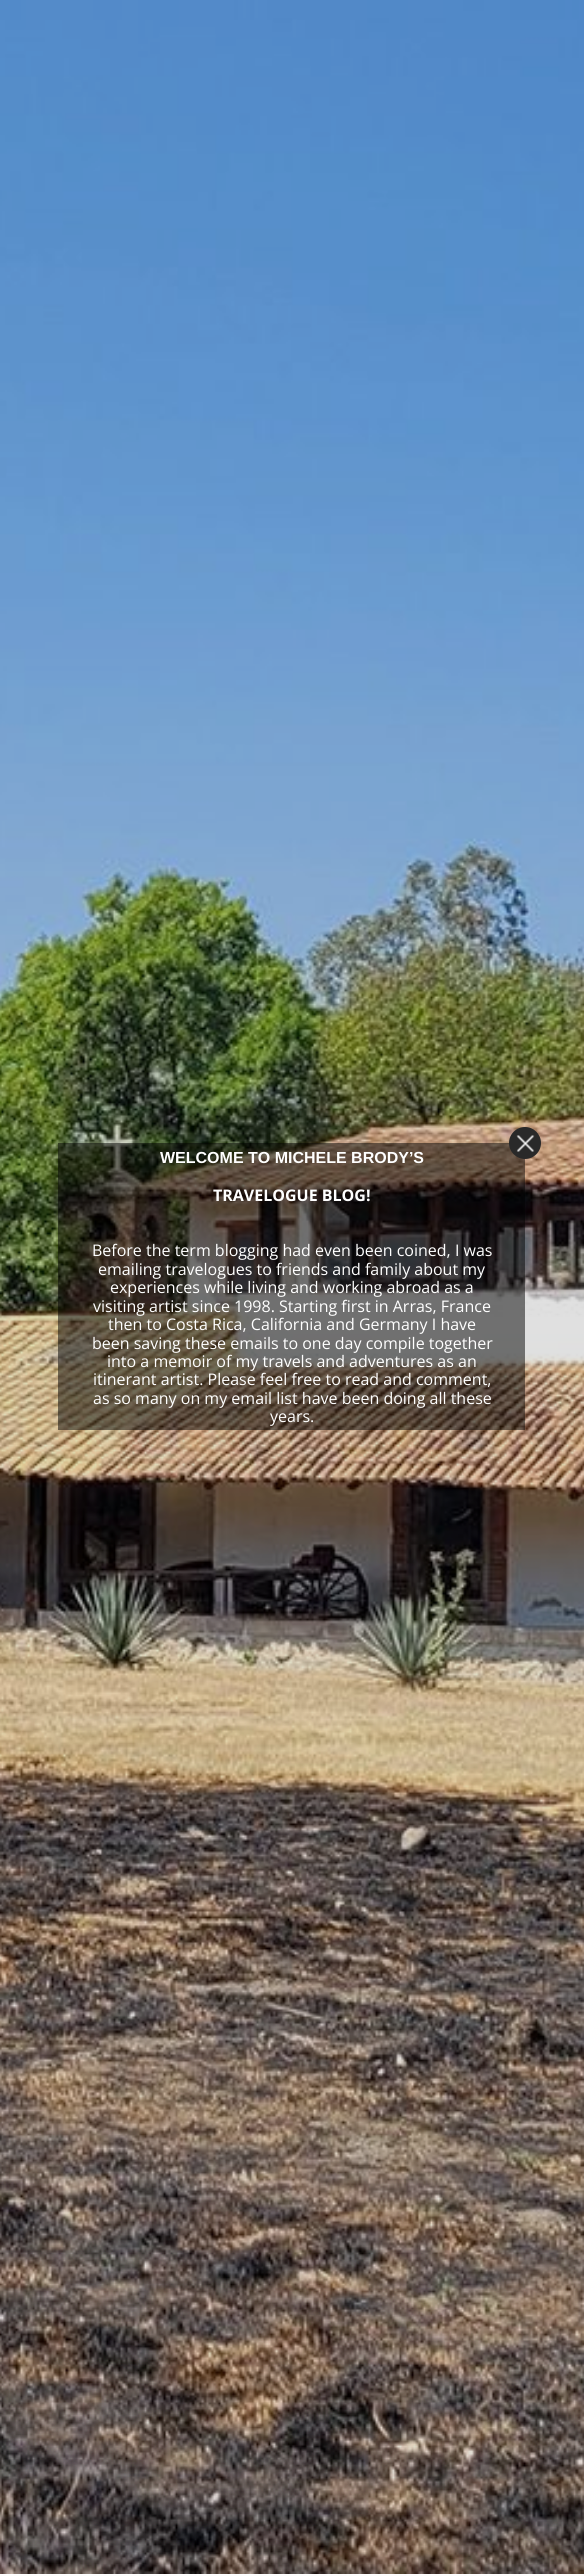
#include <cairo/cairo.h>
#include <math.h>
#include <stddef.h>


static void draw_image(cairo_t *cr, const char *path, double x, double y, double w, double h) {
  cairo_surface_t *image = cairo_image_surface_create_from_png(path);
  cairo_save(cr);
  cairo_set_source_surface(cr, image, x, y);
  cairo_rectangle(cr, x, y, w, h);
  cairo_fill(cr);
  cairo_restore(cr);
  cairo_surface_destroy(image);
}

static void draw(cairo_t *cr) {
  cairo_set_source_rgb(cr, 1, 1, 1);
  cairo_paint(cr);
  draw_image(cr, "images/1.png", 0, 0, 584, 2574);
  cairo_set_source_rgba(cr, 0, 0, 0, 0.5);
  cairo_rectangle(cr, 58, 1143, 467, 287);
  cairo_fill(cr);
  cairo_set_source_rgb(cr, 41 / 255.0, 41 / 255.0, 41 / 255.0);
  cairo_arc(cr, 525, 1143, 16, 0, 2 * M_PI);
  cairo_fill(cr);
  draw_image(cr, "images/2.png", 516, 1135, 19, 17);
  cairo_select_font_face(cr, "Liberation Sans", CAIRO_FONT_SLANT_NORMAL, CAIRO_FONT_WEIGHT_BOLD);
  cairo_set_font_size(cr, 16);
  cairo_set_source_rgb(cr, 1, 1, 1);
  cairo_move_to(cr, 160, 1163);
  cairo_show_text(cr, "WELCOME TO MICHELE BRODY’S");
  cairo_select_font_face(cr, "Open Sans", CAIRO_FONT_SLANT_NORMAL, CAIRO_FONT_WEIGHT_BOLD);
  cairo_move_to(cr, 213, 1201);
  cairo_show_text(cr, "TRAVELOGUE BLOG!");
  cairo_select_font_face(cr, "Open Sans", CAIRO_FONT_SLANT_NORMAL, CAIRO_FONT_WEIGHT_NORMAL);
  cairo_move_to(cr, 92, 1256);
  cairo_show_text(cr, "Before the term blogging had even been coined, I was");
  cairo_move_to(cr, 98, 1275);
  cairo_show_text(cr, "emailing travelogues to friends and family about my");
  cairo_move_to(cr, 110, 1293);
  cairo_show_text(cr, "experiences while living and working abroad as a");
  cairo_move_to(cr, 93, 1312);
  cairo_show_text(cr, "visiting artist since 1998. Starting first in Arras, France");
  cairo_move_to(cr, 108, 1330);
  cairo_show_text(cr, "then to Costa Rica, California and Germany I have");
  cairo_move_to(cr, 92, 1349);
  cairo_show_text(cr, "been saving these emails to one day compile together");
  cairo_move_to(cr, 107, 1367);
  cairo_show_text(cr, "into a memoir of my travels and adventures as an");
  cairo_move_to(cr, 93, 1385);
  cairo_show_text(cr, "itinerant artist. Please feel free to read and comment,");
  cairo_move_to(cr, 93, 1404);
  cairo_show_text(cr, "as so many on my email list have been doing all these");
  cairo_move_to(cr, 270, 1422);
  cairo_show_text(cr, "years.");
}

int main(void) {
  cairo_surface_t *surface = cairo_image_surface_create(CAIRO_FORMAT_RGB24, 584, 2574);
  cairo_t *cr = cairo_create(surface);
  cairo_font_options_t *options = cairo_font_options_create();
  cairo_font_options_set_hint_metrics(options, CAIRO_HINT_METRICS_OFF);
  cairo_font_options_set_hint_style(options, CAIRO_HINT_STYLE_NONE);
  cairo_set_font_options(cr, options);
  cairo_set_miter_limit(cr, 4);
  draw(cr);
  cairo_surface_write_to_png(surface, "out.png");
  cairo_font_options_destroy(options);
  cairo_destroy(cr);
  cairo_surface_destroy(surface);
  return 0;
}
